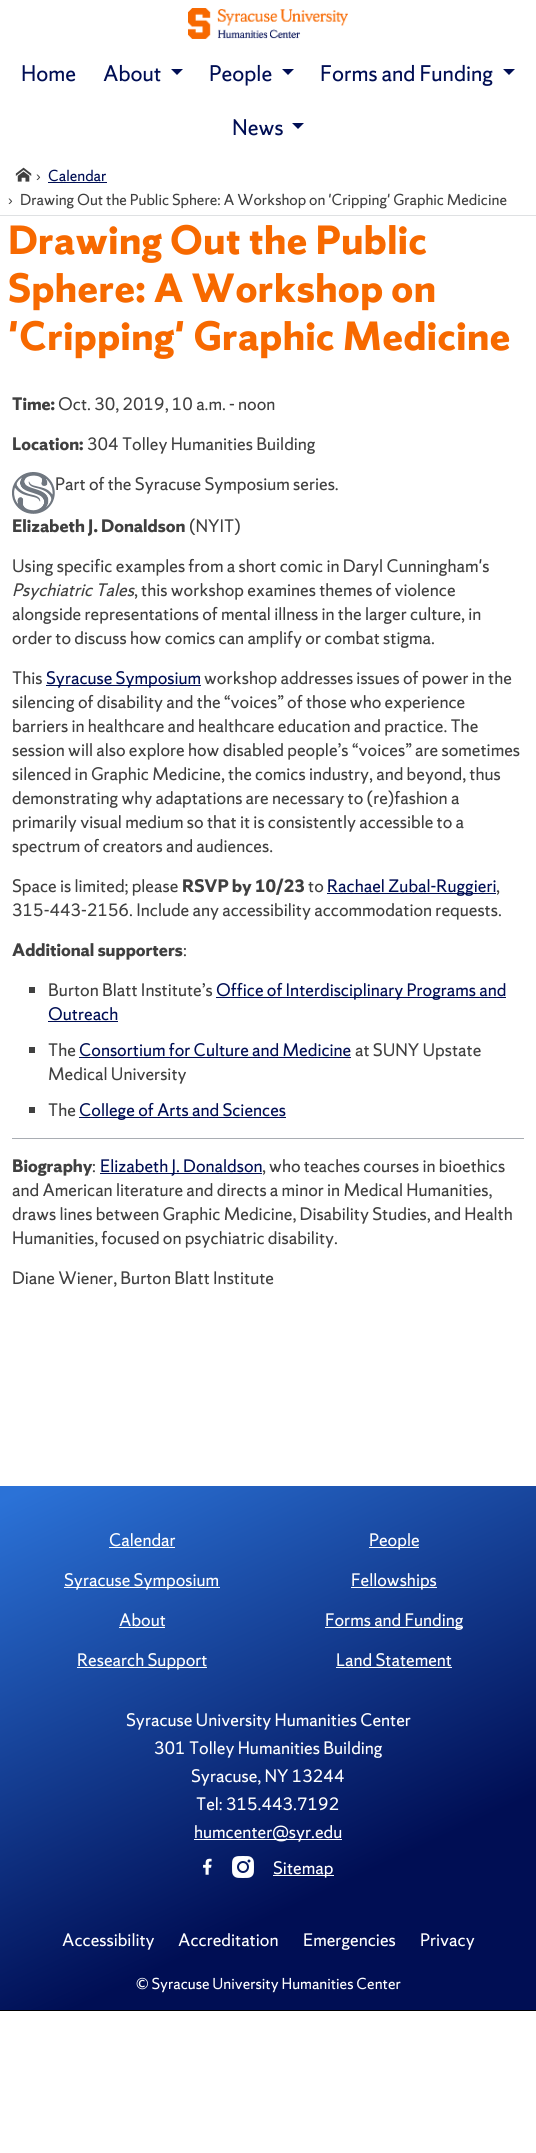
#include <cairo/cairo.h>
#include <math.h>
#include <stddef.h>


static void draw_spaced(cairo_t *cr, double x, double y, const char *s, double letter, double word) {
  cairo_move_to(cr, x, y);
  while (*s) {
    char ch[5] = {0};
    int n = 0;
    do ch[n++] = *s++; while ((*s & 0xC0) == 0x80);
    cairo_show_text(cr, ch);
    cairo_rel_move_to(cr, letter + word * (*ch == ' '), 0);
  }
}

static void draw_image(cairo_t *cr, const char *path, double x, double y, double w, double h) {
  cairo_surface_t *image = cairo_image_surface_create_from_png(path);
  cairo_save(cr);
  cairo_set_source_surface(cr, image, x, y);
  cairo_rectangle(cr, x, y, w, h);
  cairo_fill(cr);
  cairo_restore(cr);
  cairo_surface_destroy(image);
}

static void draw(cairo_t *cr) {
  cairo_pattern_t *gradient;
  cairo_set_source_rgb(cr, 1, 1, 1);
  cairo_paint(cr);
  cairo_set_source_rgb(cr, 223 / 255.0, 225 / 255.0, 227 / 255.0);
  cairo_rectangle(cr, 0, 215, 536, 1);
  cairo_fill(cr);
  draw_image(cr, "images/1.png", 188, 8, 160, 31);
  cairo_set_source_rgb(cr, 0, 14 / 255.0, 84 / 255.0);
  cairo_new_path(cr);
  cairo_move_to(cr, 171, 69);
  cairo_line_to(cr, 183, 69);
  cairo_line_to(cr, 177, 75);
  cairo_close_path(cr);
  cairo_fill(cr);
  cairo_new_path(cr);
  cairo_move_to(cr, 282, 69);
  cairo_line_to(cr, 294, 69);
  cairo_line_to(cr, 288, 75);
  cairo_close_path(cr);
  cairo_fill(cr);
  cairo_new_path(cr);
  cairo_move_to(cr, 503, 69);
  cairo_line_to(cr, 515, 69);
  cairo_line_to(cr, 509, 75);
  cairo_close_path(cr);
  cairo_fill(cr);
  cairo_new_path(cr);
  cairo_move_to(cr, 292, 123);
  cairo_line_to(cr, 304, 123);
  cairo_line_to(cr, 298, 129);
  cairo_close_path(cr);
  cairo_fill(cr);
  draw_image(cr, "images/2.png", 15, 167, 17, 15);
  cairo_rectangle(cr, 48, 182, 59, 1);
  cairo_fill(cr);
  draw_image(cr, "images/3.png", 12, 472, 43, 42);
  cairo_rectangle(cr, 46, 685, 155, 1);
  cairo_fill(cr);
  cairo_rectangle(cr, 327, 893, 169, 1);
  cairo_fill(cr);
  cairo_set_source_rgb(cr, 64 / 255.0, 64 / 255.0, 64 / 255.0);
  cairo_rectangle(cr, 29, 987, 6, 6);
  cairo_fill(cr);
  cairo_set_source_rgb(cr, 0, 14 / 255.0, 84 / 255.0);
  cairo_rectangle(cr, 216, 997, 290, 1);
  cairo_fill(cr);
  cairo_rectangle(cr, 48, 1021, 70, 1);
  cairo_fill(cr);
  cairo_set_source_rgb(cr, 64 / 255.0, 64 / 255.0, 64 / 255.0);
  cairo_rectangle(cr, 29, 1047, 6, 6);
  cairo_fill(cr);
  cairo_set_source_rgb(cr, 0, 14 / 255.0, 84 / 255.0);
  cairo_rectangle(cr, 79, 1057, 272, 1);
  cairo_fill(cr);
  cairo_set_source_rgb(cr, 64 / 255.0, 64 / 255.0, 64 / 255.0);
  cairo_rectangle(cr, 29, 1107, 6, 6);
  cairo_fill(cr);
  cairo_set_source_rgb(cr, 0, 14 / 255.0, 84 / 255.0);
  cairo_rectangle(cr, 79, 1117, 207, 1);
  cairo_fill(cr);
  cairo_set_source_rgb(cr, 169 / 255.0, 173 / 255.0, 179 / 255.0);
  cairo_rectangle(cr, 12, 1138, 512, 1);
  cairo_fill(cr);
  cairo_set_source_rgb(cr, 0, 14 / 255.0, 84 / 255.0);
  cairo_rectangle(cr, 100, 1173, 162, 1);
  cairo_fill(cr);
  gradient = cairo_pattern_create_linear(416, 2066, 120, 1430);
  cairo_pattern_add_color_stop_rgba(gradient, 0.28, 0, 14 / 255.0, 84 / 255.0, 1);
  cairo_pattern_add_color_stop_rgba(gradient, 0.98, 43 / 255.0, 114 / 255.0, 215 / 255.0, 1);
  cairo_set_source(cr, gradient);
  cairo_pattern_destroy(gradient);
  cairo_rectangle(cr, 0, 1486, 536, 524);
  cairo_fill(cr);
  cairo_set_source_rgb(cr, 0, 0, 0);
  cairo_rectangle(cr, 0, 2010, 536, 1);
  cairo_fill(cr);
  cairo_set_source_rgb(cr, 1, 1, 1);
  cairo_rectangle(cr, 109, 1547, 66, 1);
  cairo_fill(cr);
  cairo_rectangle(cr, 64, 1587, 156, 1);
  cairo_fill(cr);
  cairo_rectangle(cr, 119, 1627, 46, 1);
  cairo_fill(cr);
  cairo_rectangle(cr, 77, 1667, 130, 1);
  cairo_fill(cr);
  cairo_rectangle(cr, 369, 1547, 50, 1);
  cairo_fill(cr);
  cairo_rectangle(cr, 351, 1587, 86, 1);
  cairo_fill(cr);
  cairo_rectangle(cr, 325, 1627, 138, 1);
  cairo_fill(cr);
  cairo_rectangle(cr, 336, 1667, 116, 1);
  cairo_fill(cr);
  cairo_rectangle(cr, 194, 1839, 148, 1);
  cairo_fill(cr);
  draw_image(cr, "images/4.png", 203, 1858, 9, 17);
  draw_image(cr, "images/5.png", 232, 1856, 22, 22);
  cairo_rectangle(cr, 273, 1875, 61, 1);
  cairo_fill(cr);
  cairo_select_font_face(cr, "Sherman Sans", CAIRO_FONT_SLANT_NORMAL, CAIRO_FONT_WEIGHT_NORMAL);
  cairo_set_font_size(cr, 20);
  cairo_set_source_rgb(cr, 0, 14 / 255.0, 84 / 255.0);
  cairo_move_to(cr, 21, 81);
  cairo_show_text(cr, "Home");
  cairo_move_to(cr, 103, 81);
  cairo_show_text(cr, "About");
  cairo_move_to(cr, 209, 81);
  cairo_show_text(cr, "People");
  cairo_move_to(cr, 320, 81);
  cairo_show_text(cr, "Forms and Funding");
  cairo_move_to(cr, 232, 135);
  cairo_show_text(cr, "News");
  cairo_select_font_face(cr, "Liberation Sans", CAIRO_FONT_SLANT_NORMAL, CAIRO_FONT_WEIGHT_NORMAL);
  cairo_set_font_size(cr, 14);
  cairo_set_source_rgb(cr, 64 / 255.0, 64 / 255.0, 64 / 255.0);
  cairo_move_to(cr, 36, 181);
  cairo_show_text(cr, "›");
  cairo_select_font_face(cr, "Sherman Sans", CAIRO_FONT_SLANT_NORMAL, CAIRO_FONT_WEIGHT_NORMAL);
  cairo_set_source_rgb(cr, 0, 14 / 255.0, 84 / 255.0);
  cairo_move_to(cr, 48, 181);
  cairo_show_text(cr, "Calendar");
  cairo_select_font_face(cr, "Liberation Sans", CAIRO_FONT_SLANT_NORMAL, CAIRO_FONT_WEIGHT_NORMAL);
  cairo_set_source_rgb(cr, 64 / 255.0, 64 / 255.0, 64 / 255.0);
  cairo_move_to(cr, 8, 205);
  cairo_show_text(cr, "›");
  cairo_select_font_face(cr, "Sherman Sans", CAIRO_FONT_SLANT_NORMAL, CAIRO_FONT_WEIGHT_NORMAL);
  cairo_move_to(cr, 20, 205);
  cairo_show_text(cr, "Drawing Out the Public Sphere: A Workshop on 'Cripping' Graphic Medicine");
  cairo_select_font_face(cr, "Sherman Sans", CAIRO_FONT_SLANT_NORMAL, CAIRO_FONT_WEIGHT_BOLD);
  cairo_set_font_size(cr, 36);
  cairo_set_source_rgb(cr, 247 / 255.0, 105 / 255.0, 0);
  draw_spaced(cr, 8, 254, "Drawing Out the Public", 0.5, 0);
  draw_spaced(cr, 8, 302, "Sphere: A Workshop on", 0.5, 0);
  draw_spaced(cr, 8, 350, "'Cripping' Graphic Medicine", 0.5, 0);
  cairo_set_font_size(cr, 16);
  cairo_set_source_rgb(cr, 64 / 255.0, 64 / 255.0, 64 / 255.0);
  cairo_move_to(cr, 12, 410);
  cairo_show_text(cr, "Time:");
  cairo_select_font_face(cr, "Sherman Sans", CAIRO_FONT_SLANT_NORMAL, CAIRO_FONT_WEIGHT_NORMAL);
  cairo_move_to(cr, 58, 410);
  cairo_show_text(cr, "Oct. 30, 2019, 10 a.m. - noon");
  cairo_select_font_face(cr, "Sherman Sans", CAIRO_FONT_SLANT_NORMAL, CAIRO_FONT_WEIGHT_BOLD);
  cairo_move_to(cr, 12, 450);
  cairo_show_text(cr, "Location:");
  cairo_select_font_face(cr, "Sherman Sans", CAIRO_FONT_SLANT_NORMAL, CAIRO_FONT_WEIGHT_NORMAL);
  cairo_move_to(cr, 87, 450);
  cairo_show_text(cr, "304 Tolley Humanities Building");
  cairo_move_to(cr, 55, 490);
  cairo_show_text(cr, "Part of the Syracuse Symposium series.");
  cairo_select_font_face(cr, "Sherman Sans", CAIRO_FONT_SLANT_NORMAL, CAIRO_FONT_WEIGHT_BOLD);
  cairo_move_to(cr, 12, 532);
  cairo_show_text(cr, "Elizabeth J. Donaldson");
  cairo_select_font_face(cr, "Sherman Sans", CAIRO_FONT_SLANT_NORMAL, CAIRO_FONT_WEIGHT_NORMAL);
  cairo_move_to(cr, 189, 532);
  cairo_show_text(cr, "(NYIT)");
  cairo_move_to(cr, 12, 572);
  cairo_show_text(cr, "Using specific examples from a short comic in Daryl Cunningham's");
  cairo_select_font_face(cr, "Sherman Sans", CAIRO_FONT_SLANT_ITALIC, CAIRO_FONT_WEIGHT_NORMAL);
  cairo_move_to(cr, 12, 596);
  cairo_show_text(cr, "Psychiatric Tales");
  cairo_select_font_face(cr, "Sherman Sans", CAIRO_FONT_SLANT_NORMAL, CAIRO_FONT_WEIGHT_NORMAL);
  cairo_move_to(cr, 134, 596);
  cairo_show_text(cr, ", this workshop examines themes of violence");
  cairo_move_to(cr, 12, 620);
  cairo_show_text(cr, "alongside representations of mental illness in the larger culture, in");
  cairo_move_to(cr, 12, 644);
  cairo_show_text(cr, "order to discuss how comics can amplify or combat stigma.");
  cairo_move_to(cr, 12, 684);
  cairo_show_text(cr, "This");
  cairo_set_source_rgb(cr, 0, 14 / 255.0, 84 / 255.0);
  cairo_move_to(cr, 46, 684);
  cairo_show_text(cr, "Syracuse Symposium");
  cairo_set_source_rgb(cr, 64 / 255.0, 64 / 255.0, 64 / 255.0);
  cairo_move_to(cr, 204, 684);
  cairo_show_text(cr, "workshop addresses issues of power in the");
  cairo_move_to(cr, 12, 708);
  cairo_show_text(cr, "silencing of disability and the “voices” of those who experience");
  cairo_move_to(cr, 12, 732);
  cairo_show_text(cr, "barriers in healthcare and healthcare education and practice. The");
  cairo_move_to(cr, 12, 756);
  cairo_show_text(cr, "session will also explore how disabled people’s “voices” are sometimes");
  cairo_move_to(cr, 12, 780);
  cairo_show_text(cr, "silenced in Graphic Medicine, the comics industry, and beyond, thus");
  cairo_move_to(cr, 12, 804);
  cairo_show_text(cr, "demonstrating why adaptations are necessary to (re)fashion a");
  cairo_move_to(cr, 12, 828);
  cairo_show_text(cr, "primarily visual medium so that it is consistently accessible to a");
  cairo_move_to(cr, 12, 852);
  cairo_show_text(cr, "spectrum of creators and audiences.");
  cairo_move_to(cr, 12, 892);
  cairo_show_text(cr, "Space is limited; please");
  cairo_select_font_face(cr, "Sherman Sans", CAIRO_FONT_SLANT_NORMAL, CAIRO_FONT_WEIGHT_BOLD);
  cairo_move_to(cr, 182, 892);
  cairo_show_text(cr, "RSVP by 10/23");
  cairo_select_font_face(cr, "Sherman Sans", CAIRO_FONT_SLANT_NORMAL, CAIRO_FONT_WEIGHT_NORMAL);
  cairo_move_to(cr, 308, 892);
  cairo_show_text(cr, "to");
  cairo_set_source_rgb(cr, 0, 14 / 255.0, 84 / 255.0);
  cairo_move_to(cr, 327, 892);
  cairo_show_text(cr, "Rachael Zubal-Ruggieri");
  cairo_set_source_rgb(cr, 64 / 255.0, 64 / 255.0, 64 / 255.0);
  cairo_move_to(cr, 496, 892);
  cairo_show_text(cr, ",");
  cairo_move_to(cr, 12, 916);
  cairo_show_text(cr, "315-443-2156. Include any accessibility accommodation requests.");
  cairo_select_font_face(cr, "Sherman Sans", CAIRO_FONT_SLANT_NORMAL, CAIRO_FONT_WEIGHT_BOLD);
  cairo_move_to(cr, 12, 956);
  cairo_show_text(cr, "Additional supporters");
  cairo_select_font_face(cr, "Sherman Sans", CAIRO_FONT_SLANT_NORMAL, CAIRO_FONT_WEIGHT_NORMAL);
  cairo_move_to(cr, 183, 956);
  cairo_show_text(cr, ":");
  cairo_move_to(cr, 48, 996);
  cairo_show_text(cr, "Burton Blatt Institute’s");
  cairo_set_source_rgb(cr, 0, 14 / 255.0, 84 / 255.0);
  cairo_move_to(cr, 216, 996);
  cairo_show_text(cr, "Office of Interdisciplinary Programs and");
  cairo_move_to(cr, 48, 1020);
  cairo_show_text(cr, "Outreach");
  cairo_set_source_rgb(cr, 64 / 255.0, 64 / 255.0, 64 / 255.0);
  cairo_move_to(cr, 48, 1056);
  cairo_show_text(cr, "The");
  cairo_set_source_rgb(cr, 0, 14 / 255.0, 84 / 255.0);
  cairo_move_to(cr, 79, 1056);
  cairo_show_text(cr, "Consortium for Culture and Medicine");
  cairo_set_source_rgb(cr, 64 / 255.0, 64 / 255.0, 64 / 255.0);
  cairo_move_to(cr, 355, 1056);
  cairo_show_text(cr, "at SUNY Upstate");
  cairo_move_to(cr, 48, 1080);
  cairo_show_text(cr, "Medical University");
  cairo_move_to(cr, 48, 1116);
  cairo_show_text(cr, "The");
  cairo_set_source_rgb(cr, 0, 14 / 255.0, 84 / 255.0);
  cairo_move_to(cr, 79, 1116);
  cairo_show_text(cr, "College of Arts and Sciences");
  cairo_select_font_face(cr, "Sherman Sans", CAIRO_FONT_SLANT_NORMAL, CAIRO_FONT_WEIGHT_BOLD);
  cairo_set_source_rgb(cr, 64 / 255.0, 64 / 255.0, 64 / 255.0);
  cairo_move_to(cr, 12, 1172);
  cairo_show_text(cr, "Biography");
  cairo_select_font_face(cr, "Sherman Sans", CAIRO_FONT_SLANT_NORMAL, CAIRO_FONT_WEIGHT_NORMAL);
  cairo_move_to(cr, 92, 1172);
  cairo_show_text(cr, ":");
  cairo_set_source_rgb(cr, 0, 14 / 255.0, 84 / 255.0);
  cairo_move_to(cr, 100, 1172);
  cairo_show_text(cr, "Elizabeth J. Donaldson");
  cairo_set_source_rgb(cr, 64 / 255.0, 64 / 255.0, 64 / 255.0);
  cairo_move_to(cr, 262, 1172);
  cairo_show_text(cr, ", who teaches courses in bioethics");
  cairo_move_to(cr, 12, 1196);
  cairo_show_text(cr, "and American literature and directs a minor in Medical Humanities,");
  cairo_move_to(cr, 12, 1220);
  cairo_show_text(cr, "draws lines between Graphic Medicine, Disability Studies, and Health");
  cairo_move_to(cr, 12, 1244);
  cairo_show_text(cr, "Humanities, focused on psychiatric disability.");
  cairo_move_to(cr, 12, 1284);
  cairo_show_text(cr, "Diane Wiener, Burton Blatt Institute");
  cairo_set_source_rgb(cr, 1, 1, 1);
  cairo_move_to(cr, 109, 1546);
  cairo_show_text(cr, "Calendar");
  cairo_move_to(cr, 64, 1586);
  cairo_show_text(cr, "Syracuse Symposium");
  cairo_move_to(cr, 119, 1626);
  cairo_show_text(cr, "About");
  cairo_move_to(cr, 77, 1666);
  cairo_show_text(cr, "Research Support");
  cairo_move_to(cr, 369, 1546);
  cairo_show_text(cr, "People");
  cairo_move_to(cr, 351, 1586);
  cairo_show_text(cr, "Fellowships");
  cairo_move_to(cr, 325, 1626);
  cairo_show_text(cr, "Forms and Funding");
  cairo_move_to(cr, 336, 1666);
  cairo_show_text(cr, "Land Statement");
  cairo_move_to(cr, 126, 1726);
  cairo_show_text(cr, "Syracuse University Humanities Center");
  cairo_move_to(cr, 154, 1754);
  cairo_show_text(cr, "301 Tolley Humanities Building");
  cairo_move_to(cr, 191, 1782);
  cairo_show_text(cr, "Syracuse, NY 13244");
  cairo_move_to(cr, 196, 1810);
  cairo_show_text(cr, "Tel: 315.443.7192");
  cairo_move_to(cr, 194, 1838);
  cairo_show_text(cr, "humcenter@syr.edu");
  cairo_move_to(cr, 273, 1874);
  cairo_show_text(cr, "Sitemap");
  cairo_move_to(cr, 62, 1946);
  cairo_show_text(cr, "Accessibility");
  cairo_move_to(cr, 178, 1946);
  cairo_show_text(cr, "Accreditation");
  cairo_move_to(cr, 303, 1946);
  cairo_show_text(cr, "Emergencies");
  cairo_move_to(cr, 420, 1946);
  cairo_show_text(cr, "Privacy");
  cairo_set_font_size(cr, 14);
  cairo_move_to(cr, 136, 1989);
  cairo_show_text(cr, "© Syracuse University Humanities Center");
}

int main(void) {
  cairo_surface_t *surface = cairo_image_surface_create(CAIRO_FORMAT_RGB24, 536, 2153);
  cairo_t *cr = cairo_create(surface);
  cairo_font_options_t *options = cairo_font_options_create();
  cairo_font_options_set_hint_metrics(options, CAIRO_HINT_METRICS_OFF);
  cairo_font_options_set_hint_style(options, CAIRO_HINT_STYLE_NONE);
  cairo_set_font_options(cr, options);
  cairo_set_miter_limit(cr, 4);
  draw(cr);
  cairo_surface_write_to_png(surface, "out.png");
  cairo_font_options_destroy(options);
  cairo_destroy(cr);
  cairo_surface_destroy(surface);
  return 0;
}
